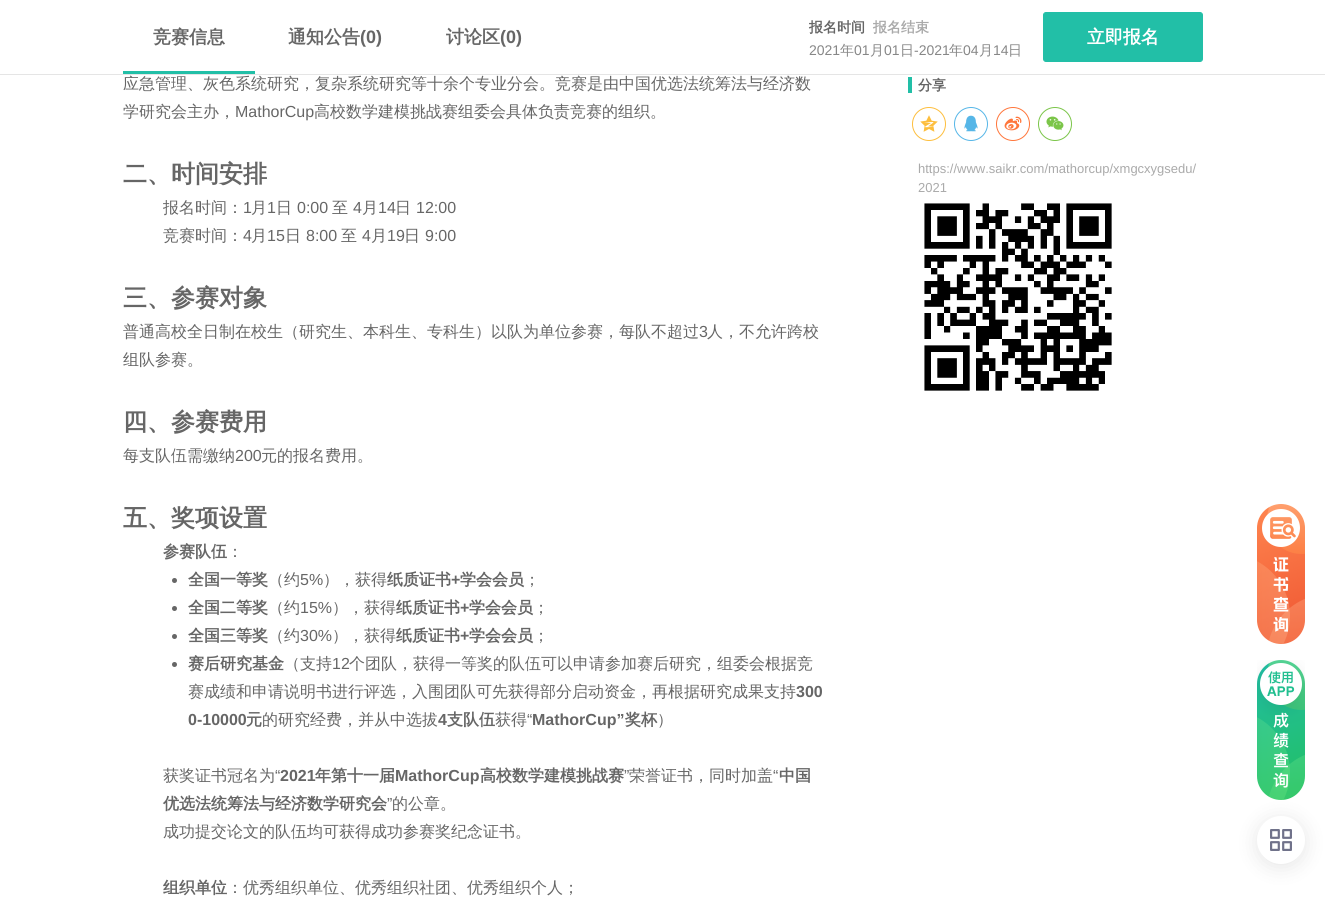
#include <cairo/cairo.h>
#include <math.h>
#include <stddef.h>


static void rounded_rect(cairo_t *cr, double x, double y, double w, double h, double r) {
  cairo_new_sub_path(cr);
  cairo_arc(cr, x + w - r, y + h - r, r, 0, M_PI / 2);
  cairo_arc(cr, x + r, y + h - r, r, M_PI / 2, M_PI);
  cairo_arc(cr, x + r, y + r, r, M_PI, 1.5 * M_PI);
  cairo_arc(cr, x + w - r, y + r, r, 1.5 * M_PI, 2 * M_PI);
  cairo_close_path(cr);
}

static void draw_shadow(cairo_t *cr, double x, double y, double w, double h, double r, double blur, double alpha) {
  cairo_push_group_with_content(cr, CAIRO_CONTENT_ALPHA);
  cairo_set_operator(cr, CAIRO_OPERATOR_SOURCE);
  for (int i = 15; i >= -15 && fmin(w, h) + blur * i / 3 > 0; i -= 2) {
    double e = blur * i / 6;
    cairo_set_source_rgba(cr, 0, 0, 0, alpha * erfc((i - 1) / 8.5) / 2);
    rounded_rect(cr, x - e, y - e, w + 2 * e, h + 2 * e, fmax(0, fmin(r + e + blur * .6, fmin(w, h) / 2 + e)));
    cairo_fill(cr);
  }
  cairo_pattern_t *soft = cairo_pop_group(cr);
  cairo_mask(cr, soft);
  cairo_pattern_destroy(soft);
}

static void draw_image(cairo_t *cr, const char *path, double x, double y, double w, double h) {
  cairo_surface_t *image = cairo_image_surface_create_from_png(path);
  cairo_save(cr);
  cairo_set_source_surface(cr, image, x, y);
  cairo_rectangle(cr, x, y, w, h);
  cairo_fill(cr);
  cairo_restore(cr);
  cairo_surface_destroy(image);
}

static void draw(cairo_t *cr) {
  cairo_set_source_rgb(cr, 1, 1, 1);
  cairo_paint(cr);
  cairo_set_source_rgb(cr, 229 / 255.0, 229 / 255.0, 229 / 255.0);
  cairo_rectangle(cr, 0, 74, 1325, 1);
  cairo_fill(cr);
  cairo_set_source_rgb(cr, 34 / 255.0, 191 / 255.0, 167 / 255.0);
  cairo_rectangle(cr, 123, 71, 132, 3);
  cairo_fill(cr);
  rounded_rect(cr, 1043.5, 12.5, 159, 49, 2.5);
  cairo_fill_preserve(cr);
  cairo_set_line_width(cr, 1);
  cairo_stroke(cr);
  cairo_set_source_rgb(cr, 102 / 255.0, 102 / 255.0, 102 / 255.0);
  cairo_arc(cr, 174.5, 580.5, 2.5, 0, 2 * M_PI);
  cairo_fill(cr);
  cairo_arc(cr, 174.5, 608.5, 2.5, 0, 2 * M_PI);
  cairo_fill(cr);
  cairo_arc(cr, 174.5, 636.5, 2.5, 0, 2 * M_PI);
  cairo_fill(cr);
  cairo_arc(cr, 174.5, 664.5, 2.5, 0, 2 * M_PI);
  cairo_fill(cr);
  cairo_set_source_rgb(cr, 34 / 255.0, 191 / 255.0, 167 / 255.0);
  cairo_rectangle(cr, 908, 77, 4, 16);
  cairo_fill(cr);
  cairo_arc(cr, 929, 124, 16.5, 0, 2 * M_PI);
  cairo_set_source_rgb(cr, 253 / 255.0, 190 / 255.0, 61 / 255.0);
  cairo_stroke(cr);
  draw_image(cr, "images/1.png", 920, 115, 18, 17);
  cairo_arc(cr, 971, 124, 16.5, 0, 2 * M_PI);
  cairo_set_source_rgb(cr, 86 / 255.0, 182 / 255.0, 231 / 255.0);
  cairo_stroke(cr);
  draw_image(cr, "images/2.png", 964, 115, 14, 17);
  cairo_arc(cr, 1013, 124, 16.5, 0, 2 * M_PI);
  cairo_set_source_rgb(cr, 1, 118 / 255.0, 59 / 255.0);
  cairo_stroke(cr);
  draw_image(cr, "images/3.png", 1004, 116, 18, 15);
  cairo_arc(cr, 1055, 124, 16.5, 0, 2 * M_PI);
  cairo_set_source_rgb(cr, 123 / 255.0, 197 / 255.0, 73 / 255.0);
  cairo_stroke(cr);
  draw_image(cr, "images/4.png", 1046, 116, 18, 15);
  draw_image(cr, "images/5.png", 924, 203, 188, 188);
  draw_image(cr, "images/6.png", 1257, 504, 48, 140);
  draw_image(cr, "images/7.png", 1257, 660, 48, 140);
  cairo_set_source_rgb(cr, 0, 0, 0);
  draw_shadow(cr, 1257, 819, 48, 48, 24, 10, 0.1);
  cairo_set_source_rgb(cr, 1, 1, 1);
  cairo_arc(cr, 1281, 840, 24, 0, 2 * M_PI);
  cairo_fill(cr);
  draw_image(cr, "images/8.png", 1270, 829, 22, 22);
  cairo_select_font_face(cr, "WenQuanYi Zen Hei", CAIRO_FONT_SLANT_NORMAL, CAIRO_FONT_WEIGHT_BOLD);
  cairo_set_font_size(cr, 18);
  cairo_set_source_rgb(cr, 102 / 255.0, 102 / 255.0, 102 / 255.0);
  cairo_move_to(cr, 153, 43);
  cairo_show_text(cr, "竞赛信息");
  cairo_move_to(cr, 288, 43);
  cairo_show_text(cr, "通知公告");
  cairo_select_font_face(cr, "Liberation Sans", CAIRO_FONT_SLANT_NORMAL, CAIRO_FONT_WEIGHT_BOLD);
  cairo_move_to(cr, 360, 43);
  cairo_show_text(cr, "(0)");
  cairo_select_font_face(cr, "WenQuanYi Zen Hei", CAIRO_FONT_SLANT_NORMAL, CAIRO_FONT_WEIGHT_BOLD);
  cairo_move_to(cr, 446, 43);
  cairo_show_text(cr, "讨论区");
  cairo_select_font_face(cr, "Liberation Sans", CAIRO_FONT_SLANT_NORMAL, CAIRO_FONT_WEIGHT_BOLD);
  cairo_move_to(cr, 500, 43);
  cairo_show_text(cr, "(0)");
  cairo_select_font_face(cr, "WenQuanYi Zen Hei", CAIRO_FONT_SLANT_NORMAL, CAIRO_FONT_WEIGHT_BOLD);
  cairo_set_font_size(cr, 14);
  cairo_move_to(cr, 809, 32);
  cairo_show_text(cr, "报名时间");
  cairo_set_source_rgb(cr, 170 / 255.0, 170 / 255.0, 170 / 255.0);
  cairo_move_to(cr, 873, 32);
  cairo_show_text(cr, "报名结束");
  cairo_select_font_face(cr, "Liberation Sans", CAIRO_FONT_SLANT_NORMAL, CAIRO_FONT_WEIGHT_NORMAL);
  cairo_set_source_rgb(cr, 135 / 255.0, 135 / 255.0, 135 / 255.0);
  cairo_move_to(cr, 809, 55);
  cairo_show_text(cr, "2021");
  cairo_select_font_face(cr, "WenQuanYi Zen Hei Medium", CAIRO_FONT_SLANT_NORMAL, CAIRO_FONT_WEIGHT_NORMAL);
  cairo_move_to(cr, 840, 55);
  cairo_show_text(cr, "年");
  cairo_select_font_face(cr, "Liberation Sans", CAIRO_FONT_SLANT_NORMAL, CAIRO_FONT_WEIGHT_NORMAL);
  cairo_move_to(cr, 854, 55);
  cairo_show_text(cr, "01");
  cairo_select_font_face(cr, "WenQuanYi Zen Hei Medium", CAIRO_FONT_SLANT_NORMAL, CAIRO_FONT_WEIGHT_NORMAL);
  cairo_move_to(cr, 870, 55);
  cairo_show_text(cr, "月");
  cairo_select_font_face(cr, "Liberation Sans", CAIRO_FONT_SLANT_NORMAL, CAIRO_FONT_WEIGHT_NORMAL);
  cairo_move_to(cr, 884, 55);
  cairo_show_text(cr, "01");
  cairo_select_font_face(cr, "WenQuanYi Zen Hei Medium", CAIRO_FONT_SLANT_NORMAL, CAIRO_FONT_WEIGHT_NORMAL);
  cairo_move_to(cr, 900, 55);
  cairo_show_text(cr, "日");
  cairo_select_font_face(cr, "Liberation Sans", CAIRO_FONT_SLANT_NORMAL, CAIRO_FONT_WEIGHT_NORMAL);
  cairo_move_to(cr, 914, 55);
  cairo_show_text(cr, "-2021");
  cairo_select_font_face(cr, "WenQuanYi Zen Hei Medium", CAIRO_FONT_SLANT_NORMAL, CAIRO_FONT_WEIGHT_NORMAL);
  cairo_move_to(cr, 949, 55);
  cairo_show_text(cr, "年");
  cairo_select_font_face(cr, "Liberation Sans", CAIRO_FONT_SLANT_NORMAL, CAIRO_FONT_WEIGHT_NORMAL);
  cairo_move_to(cr, 963, 55);
  cairo_show_text(cr, "04");
  cairo_select_font_face(cr, "WenQuanYi Zen Hei Medium", CAIRO_FONT_SLANT_NORMAL, CAIRO_FONT_WEIGHT_NORMAL);
  cairo_move_to(cr, 979, 55);
  cairo_show_text(cr, "月");
  cairo_select_font_face(cr, "Liberation Sans", CAIRO_FONT_SLANT_NORMAL, CAIRO_FONT_WEIGHT_NORMAL);
  cairo_move_to(cr, 993, 55);
  cairo_show_text(cr, "14");
  cairo_select_font_face(cr, "WenQuanYi Zen Hei Medium", CAIRO_FONT_SLANT_NORMAL, CAIRO_FONT_WEIGHT_NORMAL);
  cairo_move_to(cr, 1008, 55);
  cairo_show_text(cr, "日");
  cairo_select_font_face(cr, "WenQuanYi Zen Hei", CAIRO_FONT_SLANT_NORMAL, CAIRO_FONT_WEIGHT_BOLD);
  cairo_set_font_size(cr, 18);
  cairo_set_source_rgb(cr, 1, 1, 1);
  cairo_move_to(cr, 1087, 43);
  cairo_show_text(cr, "立即报名");
  cairo_select_font_face(cr, "WenQuanYi Zen Hei Medium", CAIRO_FONT_SLANT_NORMAL, CAIRO_FONT_WEIGHT_NORMAL);
  cairo_set_font_size(cr, 16);
  cairo_set_source_rgb(cr, 102 / 255.0, 102 / 255.0, 102 / 255.0);
  cairo_move_to(cr, 123, 89);
  cairo_show_text(cr, "应急管理、灰色系统研究，复杂系统研究等十余个专业分会。竞赛是由中国优选法统筹法与经济数");
  cairo_move_to(cr, 123, 117);
  cairo_show_text(cr, "学研究会主办，");
  cairo_select_font_face(cr, "Liberation Sans", CAIRO_FONT_SLANT_NORMAL, CAIRO_FONT_WEIGHT_NORMAL);
  cairo_move_to(cr, 235, 117);
  cairo_show_text(cr, "MathorCup");
  cairo_select_font_face(cr, "WenQuanYi Zen Hei Medium", CAIRO_FONT_SLANT_NORMAL, CAIRO_FONT_WEIGHT_NORMAL);
  cairo_move_to(cr, 314, 117);
  cairo_show_text(cr, "高校数学建模挑战赛组委会具体负责竞赛的组织。");
  cairo_select_font_face(cr, "WenQuanYi Zen Hei", CAIRO_FONT_SLANT_NORMAL, CAIRO_FONT_WEIGHT_BOLD);
  cairo_set_font_size(cr, 24);
  cairo_move_to(cr, 123, 182);
  cairo_show_text(cr, "二、时间安排");
  cairo_select_font_face(cr, "WenQuanYi Zen Hei Medium", CAIRO_FONT_SLANT_NORMAL, CAIRO_FONT_WEIGHT_NORMAL);
  cairo_set_font_size(cr, 16);
  cairo_move_to(cr, 163, 213);
  cairo_show_text(cr, "报名时间：");
  cairo_select_font_face(cr, "Liberation Sans", CAIRO_FONT_SLANT_NORMAL, CAIRO_FONT_WEIGHT_NORMAL);
  cairo_move_to(cr, 243, 213);
  cairo_show_text(cr, "1");
  cairo_select_font_face(cr, "WenQuanYi Zen Hei Medium", CAIRO_FONT_SLANT_NORMAL, CAIRO_FONT_WEIGHT_NORMAL);
  cairo_move_to(cr, 251, 213);
  cairo_show_text(cr, "月");
  cairo_select_font_face(cr, "Liberation Sans", CAIRO_FONT_SLANT_NORMAL, CAIRO_FONT_WEIGHT_NORMAL);
  cairo_move_to(cr, 267, 213);
  cairo_show_text(cr, "1");
  cairo_select_font_face(cr, "WenQuanYi Zen Hei Medium", CAIRO_FONT_SLANT_NORMAL, CAIRO_FONT_WEIGHT_NORMAL);
  cairo_move_to(cr, 276, 213);
  cairo_show_text(cr, "日");
  cairo_select_font_face(cr, "Liberation Sans", CAIRO_FONT_SLANT_NORMAL, CAIRO_FONT_WEIGHT_NORMAL);
  cairo_move_to(cr, 297, 213);
  cairo_show_text(cr, "0:00");
  cairo_select_font_face(cr, "WenQuanYi Zen Hei Medium", CAIRO_FONT_SLANT_NORMAL, CAIRO_FONT_WEIGHT_NORMAL);
  cairo_move_to(cr, 332, 213);
  cairo_show_text(cr, "至");
  cairo_select_font_face(cr, "Liberation Sans", CAIRO_FONT_SLANT_NORMAL, CAIRO_FONT_WEIGHT_NORMAL);
  cairo_move_to(cr, 353, 213);
  cairo_show_text(cr, "4");
  cairo_select_font_face(cr, "WenQuanYi Zen Hei Medium", CAIRO_FONT_SLANT_NORMAL, CAIRO_FONT_WEIGHT_NORMAL);
  cairo_move_to(cr, 362, 213);
  cairo_show_text(cr, "月");
  cairo_select_font_face(cr, "Liberation Sans", CAIRO_FONT_SLANT_NORMAL, CAIRO_FONT_WEIGHT_NORMAL);
  cairo_move_to(cr, 378, 213);
  cairo_show_text(cr, "14");
  cairo_select_font_face(cr, "WenQuanYi Zen Hei Medium", CAIRO_FONT_SLANT_NORMAL, CAIRO_FONT_WEIGHT_NORMAL);
  cairo_move_to(cr, 395, 213);
  cairo_show_text(cr, "日");
  cairo_select_font_face(cr, "Liberation Sans", CAIRO_FONT_SLANT_NORMAL, CAIRO_FONT_WEIGHT_NORMAL);
  cairo_move_to(cr, 416, 213);
  cairo_show_text(cr, "12:00");
  cairo_select_font_face(cr, "WenQuanYi Zen Hei Medium", CAIRO_FONT_SLANT_NORMAL, CAIRO_FONT_WEIGHT_NORMAL);
  cairo_move_to(cr, 163, 241);
  cairo_show_text(cr, "竞赛时间：");
  cairo_select_font_face(cr, "Liberation Sans", CAIRO_FONT_SLANT_NORMAL, CAIRO_FONT_WEIGHT_NORMAL);
  cairo_move_to(cr, 243, 241);
  cairo_show_text(cr, "4");
  cairo_select_font_face(cr, "WenQuanYi Zen Hei Medium", CAIRO_FONT_SLANT_NORMAL, CAIRO_FONT_WEIGHT_NORMAL);
  cairo_move_to(cr, 251, 241);
  cairo_show_text(cr, "月");
  cairo_select_font_face(cr, "Liberation Sans", CAIRO_FONT_SLANT_NORMAL, CAIRO_FONT_WEIGHT_NORMAL);
  cairo_move_to(cr, 267, 241);
  cairo_show_text(cr, "15");
  cairo_select_font_face(cr, "WenQuanYi Zen Hei Medium", CAIRO_FONT_SLANT_NORMAL, CAIRO_FONT_WEIGHT_NORMAL);
  cairo_move_to(cr, 285, 241);
  cairo_show_text(cr, "日");
  cairo_select_font_face(cr, "Liberation Sans", CAIRO_FONT_SLANT_NORMAL, CAIRO_FONT_WEIGHT_NORMAL);
  cairo_move_to(cr, 306, 241);
  cairo_show_text(cr, "8:00");
  cairo_select_font_face(cr, "WenQuanYi Zen Hei Medium", CAIRO_FONT_SLANT_NORMAL, CAIRO_FONT_WEIGHT_NORMAL);
  cairo_move_to(cr, 341, 241);
  cairo_show_text(cr, "至");
  cairo_select_font_face(cr, "Liberation Sans", CAIRO_FONT_SLANT_NORMAL, CAIRO_FONT_WEIGHT_NORMAL);
  cairo_move_to(cr, 362, 241);
  cairo_show_text(cr, "4");
  cairo_select_font_face(cr, "WenQuanYi Zen Hei Medium", CAIRO_FONT_SLANT_NORMAL, CAIRO_FONT_WEIGHT_NORMAL);
  cairo_move_to(cr, 371, 241);
  cairo_show_text(cr, "月");
  cairo_select_font_face(cr, "Liberation Sans", CAIRO_FONT_SLANT_NORMAL, CAIRO_FONT_WEIGHT_NORMAL);
  cairo_move_to(cr, 387, 241);
  cairo_show_text(cr, "19");
  cairo_select_font_face(cr, "WenQuanYi Zen Hei Medium", CAIRO_FONT_SLANT_NORMAL, CAIRO_FONT_WEIGHT_NORMAL);
  cairo_move_to(cr, 404, 241);
  cairo_show_text(cr, "日");
  cairo_select_font_face(cr, "Liberation Sans", CAIRO_FONT_SLANT_NORMAL, CAIRO_FONT_WEIGHT_NORMAL);
  cairo_move_to(cr, 425, 241);
  cairo_show_text(cr, "9:00");
  cairo_select_font_face(cr, "WenQuanYi Zen Hei", CAIRO_FONT_SLANT_NORMAL, CAIRO_FONT_WEIGHT_BOLD);
  cairo_set_font_size(cr, 24);
  cairo_move_to(cr, 123, 306);
  cairo_show_text(cr, "三、参赛对象");
  cairo_select_font_face(cr, "WenQuanYi Zen Hei Medium", CAIRO_FONT_SLANT_NORMAL, CAIRO_FONT_WEIGHT_NORMAL);
  cairo_set_font_size(cr, 16);
  cairo_move_to(cr, 123, 337);
  cairo_show_text(cr, "普通高校全日制在校生（研究生、本科生、专科生）以队为单位参赛，每队不超过");
  cairo_select_font_face(cr, "Liberation Sans", CAIRO_FONT_SLANT_NORMAL, CAIRO_FONT_WEIGHT_NORMAL);
  cairo_move_to(cr, 699, 337);
  cairo_show_text(cr, "3");
  cairo_select_font_face(cr, "WenQuanYi Zen Hei Medium", CAIRO_FONT_SLANT_NORMAL, CAIRO_FONT_WEIGHT_NORMAL);
  cairo_move_to(cr, 707, 337);
  cairo_show_text(cr, "人，不允许跨校");
  cairo_move_to(cr, 123, 365);
  cairo_show_text(cr, "组队参赛。");
  cairo_select_font_face(cr, "WenQuanYi Zen Hei", CAIRO_FONT_SLANT_NORMAL, CAIRO_FONT_WEIGHT_BOLD);
  cairo_set_font_size(cr, 24);
  cairo_move_to(cr, 123, 430);
  cairo_show_text(cr, "四、参赛费用");
  cairo_select_font_face(cr, "WenQuanYi Zen Hei Medium", CAIRO_FONT_SLANT_NORMAL, CAIRO_FONT_WEIGHT_NORMAL);
  cairo_set_font_size(cr, 16);
  cairo_move_to(cr, 123, 461);
  cairo_show_text(cr, "每支队伍需缴纳");
  cairo_select_font_face(cr, "Liberation Sans", CAIRO_FONT_SLANT_NORMAL, CAIRO_FONT_WEIGHT_NORMAL);
  cairo_move_to(cr, 235, 461);
  cairo_show_text(cr, "200");
  cairo_select_font_face(cr, "WenQuanYi Zen Hei Medium", CAIRO_FONT_SLANT_NORMAL, CAIRO_FONT_WEIGHT_NORMAL);
  cairo_move_to(cr, 261, 461);
  cairo_show_text(cr, "元的报名费用。");
  cairo_select_font_face(cr, "WenQuanYi Zen Hei", CAIRO_FONT_SLANT_NORMAL, CAIRO_FONT_WEIGHT_BOLD);
  cairo_set_font_size(cr, 24);
  cairo_move_to(cr, 123, 526);
  cairo_show_text(cr, "五、奖项设置");
  cairo_set_font_size(cr, 16);
  cairo_move_to(cr, 163, 557);
  cairo_show_text(cr, "参赛队伍");
  cairo_select_font_face(cr, "WenQuanYi Zen Hei Medium", CAIRO_FONT_SLANT_NORMAL, CAIRO_FONT_WEIGHT_NORMAL);
  cairo_move_to(cr, 227, 557);
  cairo_show_text(cr, "：");
  cairo_select_font_face(cr, "WenQuanYi Zen Hei", CAIRO_FONT_SLANT_NORMAL, CAIRO_FONT_WEIGHT_BOLD);
  cairo_move_to(cr, 188, 585);
  cairo_show_text(cr, "全国一等奖");
  cairo_select_font_face(cr, "WenQuanYi Zen Hei Medium", CAIRO_FONT_SLANT_NORMAL, CAIRO_FONT_WEIGHT_NORMAL);
  cairo_move_to(cr, 268, 585);
  cairo_show_text(cr, "（约");
  cairo_select_font_face(cr, "Liberation Sans", CAIRO_FONT_SLANT_NORMAL, CAIRO_FONT_WEIGHT_NORMAL);
  cairo_move_to(cr, 300, 585);
  cairo_show_text(cr, "5%");
  cairo_select_font_face(cr, "WenQuanYi Zen Hei Medium", CAIRO_FONT_SLANT_NORMAL, CAIRO_FONT_WEIGHT_NORMAL);
  cairo_move_to(cr, 323, 585);
  cairo_show_text(cr, "），获得");
  cairo_select_font_face(cr, "WenQuanYi Zen Hei", CAIRO_FONT_SLANT_NORMAL, CAIRO_FONT_WEIGHT_BOLD);
  cairo_move_to(cr, 387, 585);
  cairo_show_text(cr, "纸质证书");
  cairo_select_font_face(cr, "Liberation Sans", CAIRO_FONT_SLANT_NORMAL, CAIRO_FONT_WEIGHT_BOLD);
  cairo_move_to(cr, 451, 585);
  cairo_show_text(cr, "+");
  cairo_select_font_face(cr, "WenQuanYi Zen Hei", CAIRO_FONT_SLANT_NORMAL, CAIRO_FONT_WEIGHT_BOLD);
  cairo_move_to(cr, 460, 585);
  cairo_show_text(cr, "学会会员");
  cairo_select_font_face(cr, "WenQuanYi Zen Hei Medium", CAIRO_FONT_SLANT_NORMAL, CAIRO_FONT_WEIGHT_NORMAL);
  cairo_move_to(cr, 524, 585);
  cairo_show_text(cr, "；");
  cairo_select_font_face(cr, "WenQuanYi Zen Hei", CAIRO_FONT_SLANT_NORMAL, CAIRO_FONT_WEIGHT_BOLD);
  cairo_move_to(cr, 188, 613);
  cairo_show_text(cr, "全国二等奖");
  cairo_select_font_face(cr, "WenQuanYi Zen Hei Medium", CAIRO_FONT_SLANT_NORMAL, CAIRO_FONT_WEIGHT_NORMAL);
  cairo_move_to(cr, 268, 613);
  cairo_show_text(cr, "（约");
  cairo_select_font_face(cr, "Liberation Sans", CAIRO_FONT_SLANT_NORMAL, CAIRO_FONT_WEIGHT_NORMAL);
  cairo_move_to(cr, 300, 613);
  cairo_show_text(cr, "15%");
  cairo_select_font_face(cr, "WenQuanYi Zen Hei Medium", CAIRO_FONT_SLANT_NORMAL, CAIRO_FONT_WEIGHT_NORMAL);
  cairo_move_to(cr, 332, 613);
  cairo_show_text(cr, "），获得");
  cairo_select_font_face(cr, "WenQuanYi Zen Hei", CAIRO_FONT_SLANT_NORMAL, CAIRO_FONT_WEIGHT_BOLD);
  cairo_move_to(cr, 396, 613);
  cairo_show_text(cr, "纸质证书");
  cairo_select_font_face(cr, "Liberation Sans", CAIRO_FONT_SLANT_NORMAL, CAIRO_FONT_WEIGHT_BOLD);
  cairo_move_to(cr, 460, 613);
  cairo_show_text(cr, "+");
  cairo_select_font_face(cr, "WenQuanYi Zen Hei", CAIRO_FONT_SLANT_NORMAL, CAIRO_FONT_WEIGHT_BOLD);
  cairo_move_to(cr, 469, 613);
  cairo_show_text(cr, "学会会员");
  cairo_select_font_face(cr, "WenQuanYi Zen Hei Medium", CAIRO_FONT_SLANT_NORMAL, CAIRO_FONT_WEIGHT_NORMAL);
  cairo_move_to(cr, 533, 613);
  cairo_show_text(cr, "；");
  cairo_select_font_face(cr, "WenQuanYi Zen Hei", CAIRO_FONT_SLANT_NORMAL, CAIRO_FONT_WEIGHT_BOLD);
  cairo_move_to(cr, 188, 641);
  cairo_show_text(cr, "全国三等奖");
  cairo_select_font_face(cr, "WenQuanYi Zen Hei Medium", CAIRO_FONT_SLANT_NORMAL, CAIRO_FONT_WEIGHT_NORMAL);
  cairo_move_to(cr, 268, 641);
  cairo_show_text(cr, "（约");
  cairo_select_font_face(cr, "Liberation Sans", CAIRO_FONT_SLANT_NORMAL, CAIRO_FONT_WEIGHT_NORMAL);
  cairo_move_to(cr, 300, 641);
  cairo_show_text(cr, "30%");
  cairo_select_font_face(cr, "WenQuanYi Zen Hei Medium", CAIRO_FONT_SLANT_NORMAL, CAIRO_FONT_WEIGHT_NORMAL);
  cairo_move_to(cr, 332, 641);
  cairo_show_text(cr, "），获得");
  cairo_select_font_face(cr, "WenQuanYi Zen Hei", CAIRO_FONT_SLANT_NORMAL, CAIRO_FONT_WEIGHT_BOLD);
  cairo_move_to(cr, 396, 641);
  cairo_show_text(cr, "纸质证书");
  cairo_select_font_face(cr, "Liberation Sans", CAIRO_FONT_SLANT_NORMAL, CAIRO_FONT_WEIGHT_BOLD);
  cairo_move_to(cr, 460, 641);
  cairo_show_text(cr, "+");
  cairo_select_font_face(cr, "WenQuanYi Zen Hei", CAIRO_FONT_SLANT_NORMAL, CAIRO_FONT_WEIGHT_BOLD);
  cairo_move_to(cr, 469, 641);
  cairo_show_text(cr, "学会会员");
  cairo_select_font_face(cr, "WenQuanYi Zen Hei Medium", CAIRO_FONT_SLANT_NORMAL, CAIRO_FONT_WEIGHT_NORMAL);
  cairo_move_to(cr, 533, 641);
  cairo_show_text(cr, "；");
  cairo_select_font_face(cr, "WenQuanYi Zen Hei", CAIRO_FONT_SLANT_NORMAL, CAIRO_FONT_WEIGHT_BOLD);
  cairo_move_to(cr, 188, 669);
  cairo_show_text(cr, "赛后研究基金");
  cairo_select_font_face(cr, "WenQuanYi Zen Hei Medium", CAIRO_FONT_SLANT_NORMAL, CAIRO_FONT_WEIGHT_NORMAL);
  cairo_move_to(cr, 284, 669);
  cairo_show_text(cr, "（支持");
  cairo_select_font_face(cr, "Liberation Sans", CAIRO_FONT_SLANT_NORMAL, CAIRO_FONT_WEIGHT_NORMAL);
  cairo_move_to(cr, 332, 669);
  cairo_show_text(cr, "12");
  cairo_select_font_face(cr, "WenQuanYi Zen Hei Medium", CAIRO_FONT_SLANT_NORMAL, CAIRO_FONT_WEIGHT_NORMAL);
  cairo_move_to(cr, 349, 669);
  cairo_show_text(cr, "个团队，获得一等奖的队伍可以申请参加赛后研究，组委会根据竞");
  cairo_move_to(cr, 188, 697);
  cairo_show_text(cr, "赛成绩和申请说明书进行评选，入围团队可先获得部分启动资金，再根据研究成果支持");
  cairo_select_font_face(cr, "Liberation Sans", CAIRO_FONT_SLANT_NORMAL, CAIRO_FONT_WEIGHT_BOLD);
  cairo_move_to(cr, 796, 697);
  cairo_show_text(cr, "300");
  cairo_move_to(cr, 188, 725);
  cairo_show_text(cr, "0-10000");
  cairo_select_font_face(cr, "WenQuanYi Zen Hei", CAIRO_FONT_SLANT_NORMAL, CAIRO_FONT_WEIGHT_BOLD);
  cairo_move_to(cr, 246, 725);
  cairo_show_text(cr, "元");
  cairo_select_font_face(cr, "WenQuanYi Zen Hei Medium", CAIRO_FONT_SLANT_NORMAL, CAIRO_FONT_WEIGHT_NORMAL);
  cairo_move_to(cr, 262, 725);
  cairo_show_text(cr, "的研究经费，并从中选拔");
  cairo_select_font_face(cr, "Liberation Sans", CAIRO_FONT_SLANT_NORMAL, CAIRO_FONT_WEIGHT_BOLD);
  cairo_move_to(cr, 438, 725);
  cairo_show_text(cr, "4");
  cairo_select_font_face(cr, "WenQuanYi Zen Hei", CAIRO_FONT_SLANT_NORMAL, CAIRO_FONT_WEIGHT_BOLD);
  cairo_move_to(cr, 447, 725);
  cairo_show_text(cr, "支队伍");
  cairo_select_font_face(cr, "WenQuanYi Zen Hei Medium", CAIRO_FONT_SLANT_NORMAL, CAIRO_FONT_WEIGHT_NORMAL);
  cairo_move_to(cr, 495, 725);
  cairo_show_text(cr, "获得");
  cairo_select_font_face(cr, "Liberation Sans", CAIRO_FONT_SLANT_NORMAL, CAIRO_FONT_WEIGHT_NORMAL);
  cairo_move_to(cr, 527, 725);
  cairo_show_text(cr, "“");
  cairo_select_font_face(cr, "Liberation Sans", CAIRO_FONT_SLANT_NORMAL, CAIRO_FONT_WEIGHT_BOLD);
  cairo_move_to(cr, 532, 725);
  cairo_show_text(cr, "MathorCup”");
  cairo_select_font_face(cr, "WenQuanYi Zen Hei", CAIRO_FONT_SLANT_NORMAL, CAIRO_FONT_WEIGHT_BOLD);
  cairo_move_to(cr, 625, 725);
  cairo_show_text(cr, "奖杯");
  cairo_select_font_face(cr, "WenQuanYi Zen Hei Medium", CAIRO_FONT_SLANT_NORMAL, CAIRO_FONT_WEIGHT_NORMAL);
  cairo_move_to(cr, 657, 725);
  cairo_show_text(cr, "）");
  cairo_move_to(cr, 163, 781);
  cairo_show_text(cr, "获奖证书冠名为");
  cairo_select_font_face(cr, "Liberation Sans", CAIRO_FONT_SLANT_NORMAL, CAIRO_FONT_WEIGHT_NORMAL);
  cairo_move_to(cr, 275, 781);
  cairo_show_text(cr, "“");
  cairo_select_font_face(cr, "Liberation Sans", CAIRO_FONT_SLANT_NORMAL, CAIRO_FONT_WEIGHT_BOLD);
  cairo_move_to(cr, 280, 781);
  cairo_show_text(cr, "2021");
  cairo_select_font_face(cr, "WenQuanYi Zen Hei", CAIRO_FONT_SLANT_NORMAL, CAIRO_FONT_WEIGHT_BOLD);
  cairo_move_to(cr, 315, 781);
  cairo_show_text(cr, "年第十一届");
  cairo_select_font_face(cr, "Liberation Sans", CAIRO_FONT_SLANT_NORMAL, CAIRO_FONT_WEIGHT_BOLD);
  cairo_move_to(cr, 395, 781);
  cairo_show_text(cr, "MathorCup");
  cairo_select_font_face(cr, "WenQuanYi Zen Hei", CAIRO_FONT_SLANT_NORMAL, CAIRO_FONT_WEIGHT_BOLD);
  cairo_move_to(cr, 480, 781);
  cairo_show_text(cr, "高校数学建模挑战赛");
  cairo_select_font_face(cr, "Liberation Sans", CAIRO_FONT_SLANT_NORMAL, CAIRO_FONT_WEIGHT_NORMAL);
  cairo_move_to(cr, 624, 781);
  cairo_show_text(cr, "”");
  cairo_select_font_face(cr, "WenQuanYi Zen Hei Medium", CAIRO_FONT_SLANT_NORMAL, CAIRO_FONT_WEIGHT_NORMAL);
  cairo_move_to(cr, 629, 781);
  cairo_show_text(cr, "荣誉证书，同时加盖");
  cairo_select_font_face(cr, "Liberation Sans", CAIRO_FONT_SLANT_NORMAL, CAIRO_FONT_WEIGHT_NORMAL);
  cairo_move_to(cr, 773, 781);
  cairo_show_text(cr, "“");
  cairo_select_font_face(cr, "WenQuanYi Zen Hei", CAIRO_FONT_SLANT_NORMAL, CAIRO_FONT_WEIGHT_BOLD);
  cairo_move_to(cr, 779, 781);
  cairo_show_text(cr, "中国");
  cairo_move_to(cr, 163, 809);
  cairo_show_text(cr, "优选法统筹法与经济数学研究会");
  cairo_select_font_face(cr, "Liberation Sans", CAIRO_FONT_SLANT_NORMAL, CAIRO_FONT_WEIGHT_NORMAL);
  cairo_move_to(cr, 387, 809);
  cairo_show_text(cr, "”");
  cairo_select_font_face(cr, "WenQuanYi Zen Hei Medium", CAIRO_FONT_SLANT_NORMAL, CAIRO_FONT_WEIGHT_NORMAL);
  cairo_move_to(cr, 392, 809);
  cairo_show_text(cr, "的公章。");
  cairo_move_to(cr, 163, 837);
  cairo_show_text(cr, "成功提交论文的队伍均可获得成功参赛奖纪念证书。");
  cairo_select_font_face(cr, "WenQuanYi Zen Hei", CAIRO_FONT_SLANT_NORMAL, CAIRO_FONT_WEIGHT_BOLD);
  cairo_move_to(cr, 163, 893);
  cairo_show_text(cr, "组织单位");
  cairo_select_font_face(cr, "WenQuanYi Zen Hei Medium", CAIRO_FONT_SLANT_NORMAL, CAIRO_FONT_WEIGHT_NORMAL);
  cairo_move_to(cr, 227, 893);
  cairo_show_text(cr, "：优秀组织单位、优秀组织社团、优秀组织个人；");
  cairo_select_font_face(cr, "WenQuanYi Zen Hei", CAIRO_FONT_SLANT_NORMAL, CAIRO_FONT_WEIGHT_BOLD);
  cairo_set_font_size(cr, 14);
  cairo_move_to(cr, 918, 90);
  cairo_show_text(cr, "分享");
  cairo_select_font_face(cr, "Liberation Sans", CAIRO_FONT_SLANT_NORMAL, CAIRO_FONT_WEIGHT_NORMAL);
  cairo_set_font_size(cr, 13);
  cairo_set_source_rgb(cr, 170 / 255.0, 170 / 255.0, 170 / 255.0);
  cairo_move_to(cr, 918, 173);
  cairo_show_text(cr, "https://www.saikr.com/mathorcup/xmgcxygsedu/");
  cairo_move_to(cr, 918, 192);
  cairo_show_text(cr, "2021");
}

int main(void) {
  cairo_surface_t *surface = cairo_image_surface_create(CAIRO_FORMAT_RGB24, 1325, 914);
  cairo_t *cr = cairo_create(surface);
  cairo_font_options_t *options = cairo_font_options_create();
  cairo_font_options_set_hint_metrics(options, CAIRO_HINT_METRICS_OFF);
  cairo_font_options_set_hint_style(options, CAIRO_HINT_STYLE_NONE);
  cairo_set_font_options(cr, options);
  cairo_set_miter_limit(cr, 4);
  draw(cr);
  cairo_surface_write_to_png(surface, "out.png");
  cairo_font_options_destroy(options);
  cairo_destroy(cr);
  cairo_surface_destroy(surface);
  return 0;
}
